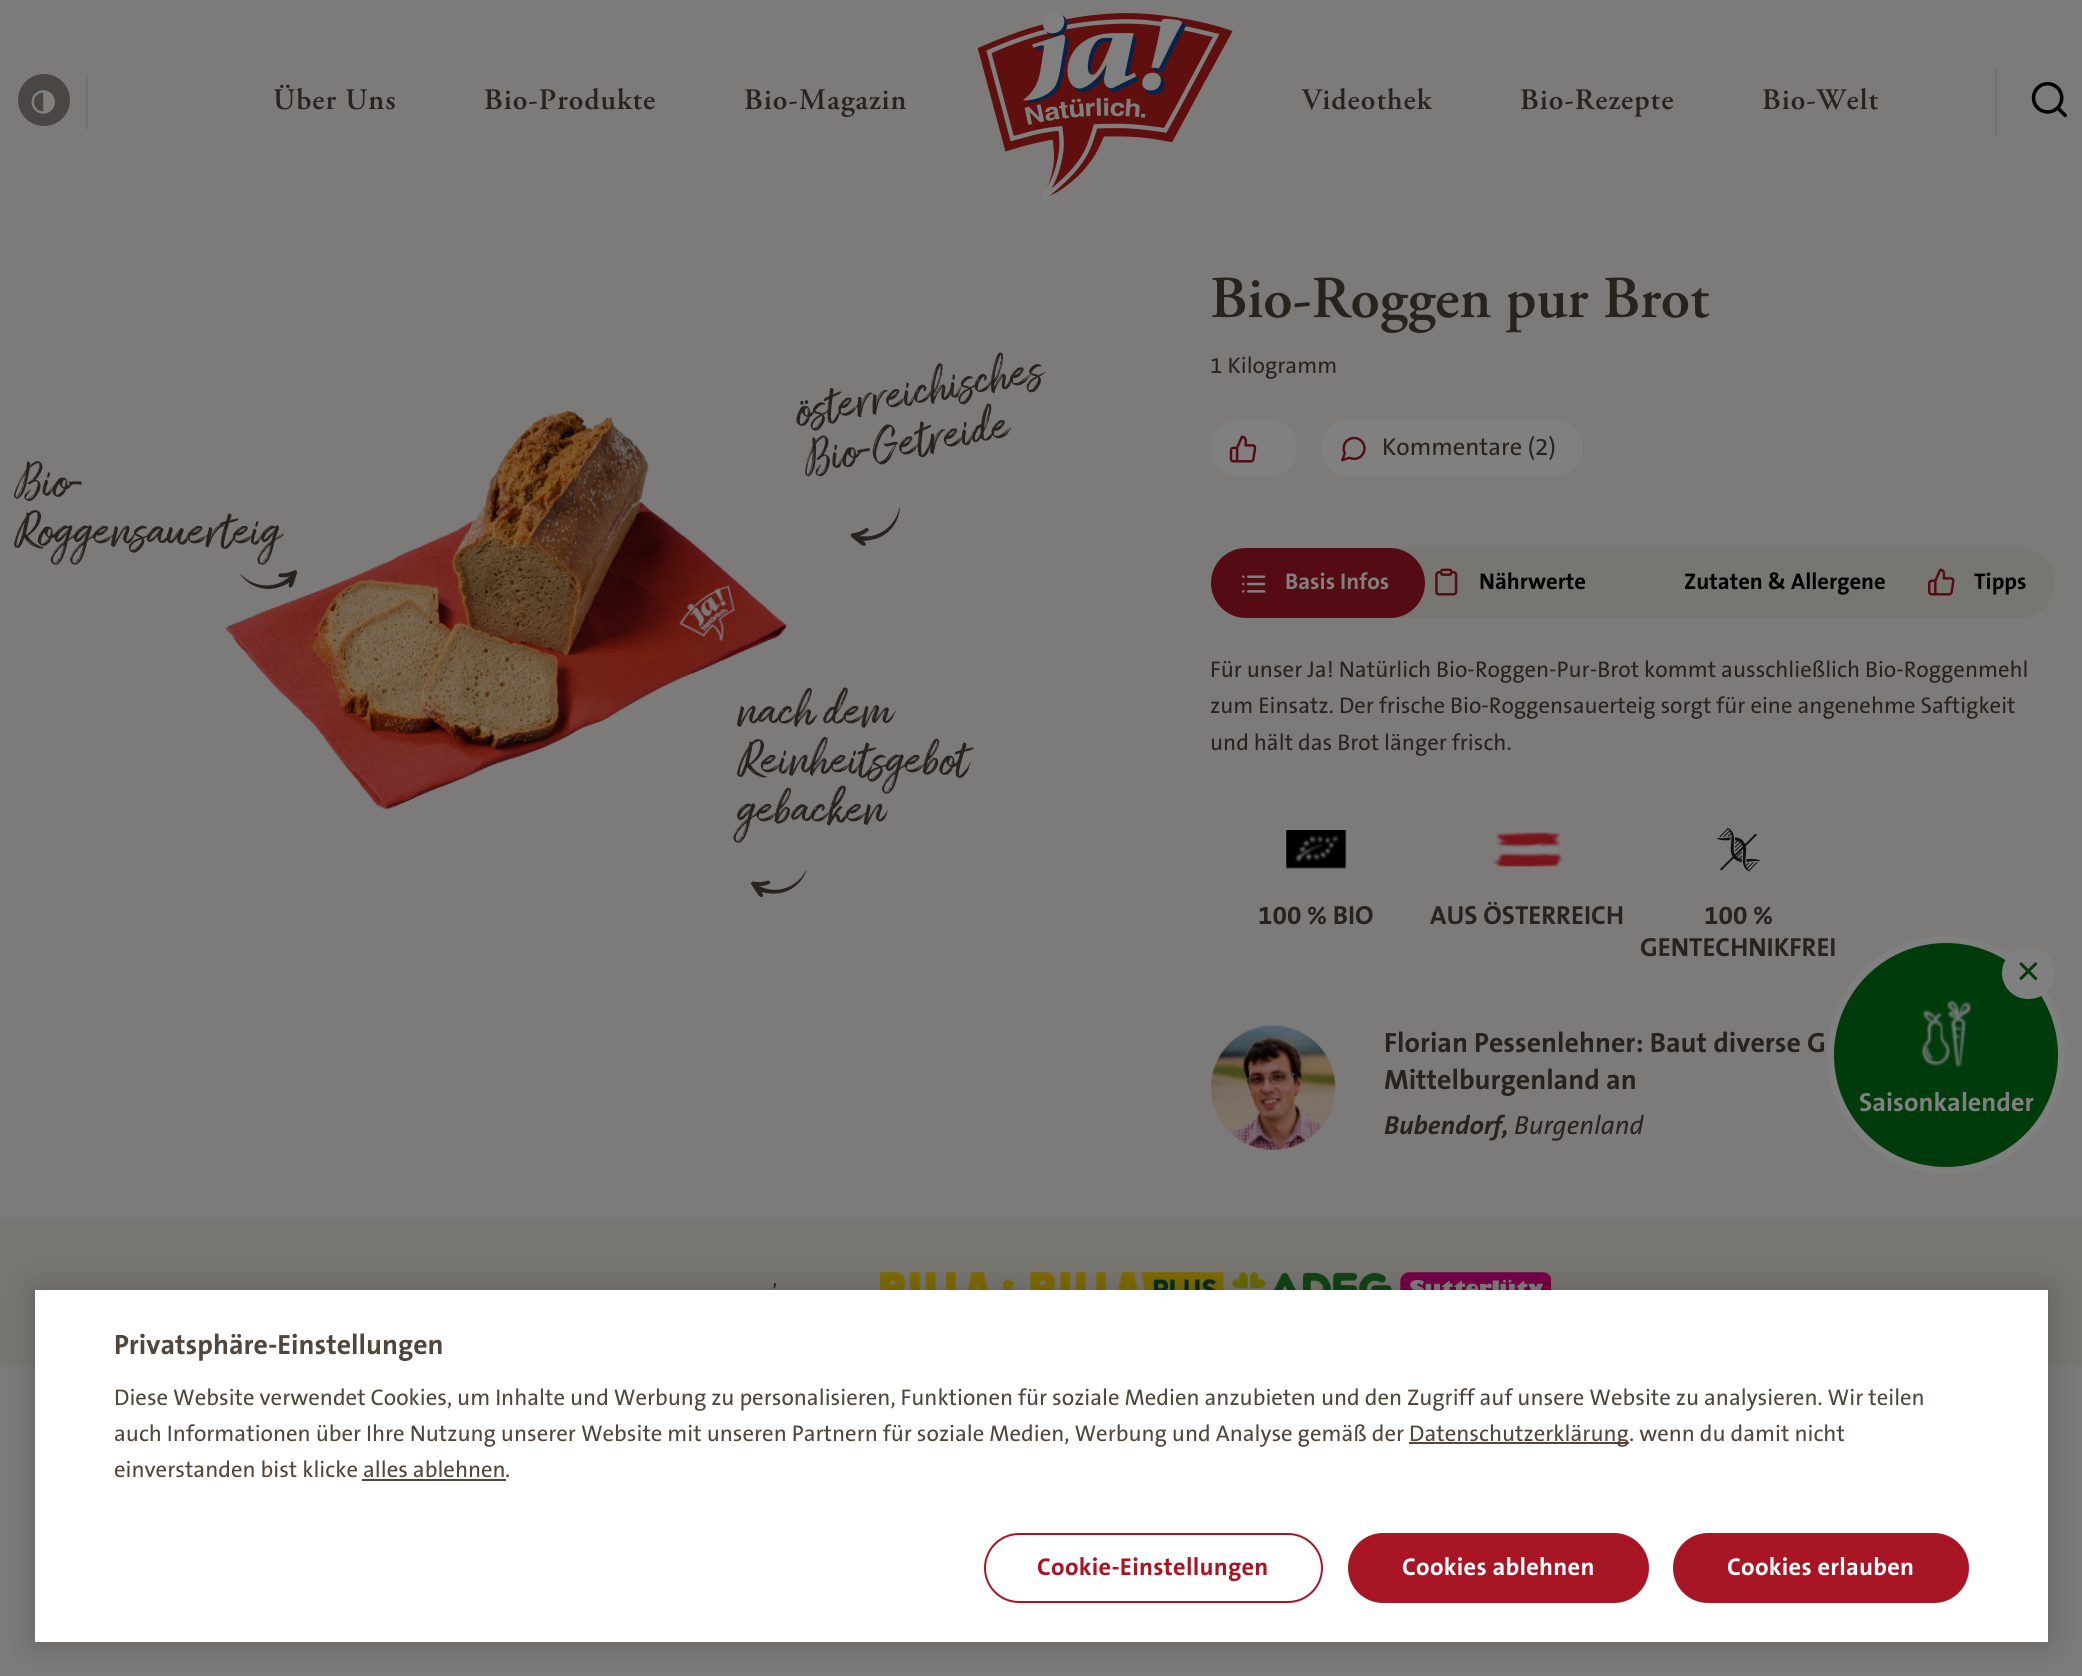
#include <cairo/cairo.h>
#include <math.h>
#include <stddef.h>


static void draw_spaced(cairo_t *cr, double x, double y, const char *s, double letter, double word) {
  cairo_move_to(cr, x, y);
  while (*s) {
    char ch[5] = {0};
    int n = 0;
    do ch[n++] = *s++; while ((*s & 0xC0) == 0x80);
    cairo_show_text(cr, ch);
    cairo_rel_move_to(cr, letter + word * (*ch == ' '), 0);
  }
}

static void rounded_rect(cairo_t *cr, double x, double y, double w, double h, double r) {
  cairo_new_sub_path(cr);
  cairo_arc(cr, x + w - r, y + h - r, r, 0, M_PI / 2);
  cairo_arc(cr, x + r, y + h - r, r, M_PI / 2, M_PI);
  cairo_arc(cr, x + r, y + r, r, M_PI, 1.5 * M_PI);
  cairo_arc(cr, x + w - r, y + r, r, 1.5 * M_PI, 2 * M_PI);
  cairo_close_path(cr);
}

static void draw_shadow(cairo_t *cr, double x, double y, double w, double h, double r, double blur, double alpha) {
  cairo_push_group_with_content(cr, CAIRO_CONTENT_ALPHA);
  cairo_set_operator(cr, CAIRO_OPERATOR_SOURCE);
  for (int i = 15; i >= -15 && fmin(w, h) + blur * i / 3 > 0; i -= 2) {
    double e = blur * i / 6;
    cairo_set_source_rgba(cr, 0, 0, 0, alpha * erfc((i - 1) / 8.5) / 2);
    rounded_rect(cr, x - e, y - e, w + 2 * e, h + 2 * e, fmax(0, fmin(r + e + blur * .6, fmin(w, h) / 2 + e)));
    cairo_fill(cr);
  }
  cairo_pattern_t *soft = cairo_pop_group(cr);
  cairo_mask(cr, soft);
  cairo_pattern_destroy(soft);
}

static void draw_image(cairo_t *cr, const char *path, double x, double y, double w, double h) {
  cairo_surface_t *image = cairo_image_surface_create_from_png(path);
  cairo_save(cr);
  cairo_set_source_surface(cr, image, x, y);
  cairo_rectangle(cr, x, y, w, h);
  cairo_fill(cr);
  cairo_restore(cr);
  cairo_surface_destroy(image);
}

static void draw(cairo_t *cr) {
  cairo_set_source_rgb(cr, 124 / 255.0, 123 / 255.0, 122 / 255.0);
  cairo_paint(cr);
  cairo_set_source_rgb(cr, 116 / 255.0, 114 / 255.0, 113 / 255.0);
  cairo_rectangle(cr, 86, 74, 2, 56);
  cairo_fill(cr);
  cairo_set_source_rgb(cr, 74 / 255.0, 70 / 255.0, 67 / 255.0);
  cairo_arc(cr, 44, 100, 26, 0, 2 * M_PI);
  cairo_fill(cr);
  draw_image(cr, "images/1.png", 31, 90, 24, 24);
  draw_image(cr, "images/2.png", 977, 12, 256, 188);
  cairo_set_source_rgb(cr, 116 / 255.0, 114 / 255.0, 113 / 255.0);
  cairo_rectangle(cr, 1995, 67, 2, 70);
  cairo_fill(cr);
  draw_image(cr, "images/3.png", 2031, 82, 36, 36);
  draw_image(cr, "images/5.png", 226, 410, 561, 400);
  draw_image(cr, "images/4.png", 240, 570, 58, 19);
  draw_image(cr, "images/6.png", 850, 507, 50, 39);
  draw_image(cr, "images/7.png", 751, 870, 56, 27);
  cairo_set_source_rgb(cr, 128 / 255.0, 128 / 255.0, 128 / 255.0);
  rounded_rect(cr, 1211, 420, 86, 56, 26);
  cairo_fill(cr);
  draw_image(cr, "images/8.png", 1229, 435, 28, 28);
  rounded_rect(cr, 1321, 420, 261, 56, 26);
  cairo_fill(cr);
  draw_image(cr, "images/9.png", 1341, 436, 25, 26);
  cairo_set_source_rgb(cr, 120 / 255.0, 118 / 255.0, 113 / 255.0);
  rounded_rect(cr, 1211, 548, 844, 70, 35);
  cairo_fill(cr);
  cairo_set_source_rgb(cr, 84 / 255.0, 11 / 255.0, 19 / 255.0);
  rounded_rect(cr, 1211, 548, 214, 70, 35);
  cairo_fill(cr);
  draw_image(cr, "images/10.png", 1242, 575, 24, 18);
  draw_image(cr, "images/11.png", 1435, 568, 23, 28);
  draw_image(cr, "images/12.png", 1928, 568, 27, 28);
  draw_image(cr, "images/13.png", 1286, 830, 61, 39);
  draw_image(cr, "images/14.png", 1492, 832, 71, 35);
  draw_image(cr, "images/15.png", 1716, 827, 45, 45);
  draw_image(cr, "images/16.png", 1211, 1025, 125, 125);
  cairo_set_source_rgb(cr, 120 / 255.0, 118 / 255.0, 113 / 255.0);
  cairo_rectangle(cr, 0, 1220, 2082, 147);
  cairo_fill(cr);
  draw_image(cr, "images/17.png", 880, 1272, 344, 18);
  draw_image(cr, "images/18.png", 1232, 1272, 160, 18);
  draw_image(cr, "images/19.png", 1400, 1272, 151, 18);
  cairo_set_source_rgb(cr, 0, 0, 0);
  draw_shadow(cr, 35, 1290, 2013, 352, 0, 16, 0.2);
  cairo_set_source_rgb(cr, 1, 1, 1);
  cairo_rectangle(cr, 35, 1290, 2013, 352);
  cairo_fill(cr);
  cairo_set_source_rgb(cr, 81 / 255.0, 70 / 255.0, 60 / 255.0);
  cairo_rectangle(cr, 1409, 1442, 220, 2);
  cairo_fill(cr);
  cairo_rectangle(cr, 362, 1479, 144, 2);
  cairo_fill(cr);
  rounded_rect(cr, 985, 1534, 337, 68, 34);
  cairo_set_source_rgb(cr, 168 / 255.0, 22 / 255.0, 37 / 255.0);
  cairo_stroke(cr);
  rounded_rect(cr, 1349, 1534, 299, 68, 34);
  cairo_fill_preserve(cr);
  cairo_stroke(cr);
  rounded_rect(cr, 1674, 1534, 294, 68, 34);
  cairo_fill_preserve(cr);
  cairo_stroke(cr);
  cairo_select_font_face(cr, "Adobe Garamond SemiBold", CAIRO_FONT_SLANT_NORMAL, CAIRO_FONT_WEIGHT_NORMAL);
  cairo_set_font_size(cr, 29.75);
  cairo_set_source_rgb(cr, 41 / 255.0, 35 / 255.0, 30 / 255.0);
  draw_spaced(cr, 273, 109, "Über Uns", 1, 0);
  draw_spaced(cr, 484, 109, "Bio-Produkte", 1, 0);
  draw_spaced(cr, 744, 109, "Bio-Magazin", 1, 0);
  draw_spaced(cr, 1302, 109, "Videothek", 1, 0);
  draw_spaced(cr, 1520, 109, "Bio-Rezepte", 1, 0);
  draw_spaced(cr, 1762, 109, "Bio-Welt", 1, 0);
  cairo_select_font_face(cr, "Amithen", CAIRO_FONT_SLANT_NORMAL, CAIRO_FONT_WEIGHT_NORMAL);
  cairo_set_font_size(cr, 49);
  cairo_move_to(cr, 14, 494);
  cairo_show_text(cr, "Bio-");
  cairo_move_to(cr, 14, 543);
  cairo_show_text(cr, "Roggensauerteig");
  cairo_save(cr);
  cairo_translate(cr, 797, 424);
  cairo_rotate(cr, -10 * M_PI / 180);
  cairo_move_to(cr, 0, 0);
  cairo_show_text(cr, "österreichisches");
  cairo_restore(cr);
  cairo_save(cr);
  cairo_translate(cr, 805, 472);
  cairo_rotate(cr, -10 * M_PI / 180);
  cairo_move_to(cr, 0, 0);
  cairo_show_text(cr, "Bio-Getreide");
  cairo_restore(cr);
  cairo_move_to(cr, 737, 723);
  cairo_show_text(cr, "nach dem");
  cairo_move_to(cr, 737, 772);
  cairo_show_text(cr, "Reinheitsgebot");
  cairo_move_to(cr, 737, 821);
  cairo_show_text(cr, "gebacken");
  cairo_select_font_face(cr, "Adobe Garamond SemiBold", CAIRO_FONT_SLANT_NORMAL, CAIRO_FONT_WEIGHT_NORMAL);
  cairo_set_font_size(cr, 59.5);
  cairo_move_to(cr, 1210, 317);
  cairo_show_text(cr, "Bio-Roggen pur Brot");
  cairo_select_font_face(cr, "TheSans", CAIRO_FONT_SLANT_NORMAL, CAIRO_FONT_WEIGHT_NORMAL);
  cairo_set_font_size(cr, 22.75);
  cairo_move_to(cr, 1210, 373);
  cairo_show_text(cr, "1 Kilogramm");
  cairo_set_font_size(cr, 24.5);
  cairo_move_to(cr, 1382, 455);
  cairo_show_text(cr, "Kommentare (2)");
  cairo_select_font_face(cr, "TheSans", CAIRO_FONT_SLANT_NORMAL, CAIRO_FONT_WEIGHT_BOLD);
  cairo_set_font_size(cr, 22.75);
  cairo_set_source_rgb(cr, 128 / 255.0, 128 / 255.0, 128 / 255.0);
  cairo_move_to(cr, 1285, 589);
  cairo_show_text(cr, "Basis Infos");
  cairo_set_source_rgb(cr, 0, 0, 0);
  cairo_move_to(cr, 1479, 589);
  cairo_show_text(cr, "Nährwerte");
  cairo_move_to(cr, 1684, 589);
  cairo_show_text(cr, "Zutaten & Allergene");
  cairo_move_to(cr, 1974, 589);
  cairo_show_text(cr, "Tipps");
  cairo_select_font_face(cr, "TheSans", CAIRO_FONT_SLANT_NORMAL, CAIRO_FONT_WEIGHT_NORMAL);
  cairo_set_source_rgb(cr, 41 / 255.0, 35 / 255.0, 30 / 255.0);
  cairo_move_to(cr, 1210, 677);
  cairo_show_text(cr, "Für unser Ja! Natürlich Bio-Roggen-Pur-Brot kommt ausschließlich Bio-Roggenmehl");
  cairo_move_to(cr, 1210, 713);
  cairo_show_text(cr, "zum Einsatz. Der frische Bio-Roggensauerteig sorgt für eine angenehme Saftigkeit");
  cairo_move_to(cr, 1210, 750);
  cairo_show_text(cr, "und hält das Brot länger frisch.");
  cairo_select_font_face(cr, "TheSans", CAIRO_FONT_SLANT_NORMAL, CAIRO_FONT_WEIGHT_BOLD);
  cairo_set_font_size(cr, 26.25);
  cairo_move_to(cr, 1258, 924);
  cairo_show_text(cr, "100 % BIO");
  cairo_move_to(cr, 1430, 924);
  cairo_show_text(cr, "AUS ÖSTERREICH");
  cairo_move_to(cr, 1704, 924);
  cairo_show_text(cr, "100 %");
  cairo_move_to(cr, 1640, 956);
  cairo_show_text(cr, "GENTECHNIKFREI");
  cairo_set_font_size(cr, 28);
  cairo_move_to(cr, 1384, 1052);
  cairo_show_text(cr, "Florian Pessenlehner: Baut diverse G");
  cairo_move_to(cr, 1384, 1089);
  cairo_show_text(cr, "Mittelburgenland an");
  cairo_select_font_face(cr, "TheSans", CAIRO_FONT_SLANT_ITALIC, CAIRO_FONT_WEIGHT_BOLD);
  cairo_set_font_size(cr, 26.25);
  cairo_move_to(cr, 1384, 1134);
  cairo_show_text(cr, "Bubendorf,");
  cairo_select_font_face(cr, "TheSans", CAIRO_FONT_SLANT_ITALIC, CAIRO_FONT_WEIGHT_NORMAL);
  cairo_move_to(cr, 1514, 1134);
  cairo_show_text(cr, "Burgenland");
  cairo_set_font_size(cr, 22.75);
  cairo_move_to(cr, 771, 1299);
  cairo_show_text(cr, "'");
  cairo_set_source_rgb(cr, 0, 59 / 255.0, 11 / 255.0);
  cairo_new_path(cr);
  cairo_arc(cr, 1946, 1055, 115.5, 0, 2 * M_PI);
  cairo_fill_preserve(cr);
  cairo_set_source_rgb(cr, 128 / 255.0, 128 / 255.0, 128 / 255.0);
  cairo_set_line_width(cr, 7);
  cairo_stroke(cr);
  rounded_rect(cr, 2002, 947, 53, 52, 26);
  cairo_fill(cr);
  draw_image(cr, "images/20.png", 2019, 962, 19, 18);
  draw_image(cr, "images/21.png", 1921, 999, 50, 69);
  cairo_select_font_face(cr, "TheSans", CAIRO_FONT_SLANT_NORMAL, CAIRO_FONT_WEIGHT_BOLD);
  cairo_set_font_size(cr, 26.25);
  cairo_move_to(cr, 1859, 1111);
  cairo_show_text(cr, "Saisonkalender");
  cairo_set_font_size(cr, 28);
  cairo_set_source_rgb(cr, 81 / 255.0, 70 / 255.0, 60 / 255.0);
  cairo_move_to(cr, 114, 1354);
  cairo_show_text(cr, "Privatsphäre-Einstellungen");
  cairo_select_font_face(cr, "TheSans", CAIRO_FONT_SLANT_NORMAL, CAIRO_FONT_WEIGHT_NORMAL);
  cairo_set_font_size(cr, 22.75);
  cairo_move_to(cr, 114, 1405);
  cairo_show_text(cr, "Diese Website verwendet Cookies, um Inhalte und Werbung zu personalisieren, Funktionen für soziale Medien anzubieten und den Zugriff auf unsere Website zu analysieren. Wir teilen");
  cairo_move_to(cr, 114, 1441);
  cairo_show_text(cr, "auch Informationen über Ihre Nutzung unserer Website mit unseren Partnern für soziale Medien, Werbung und Analyse gemäß der");
  cairo_move_to(cr, 1409, 1441);
  cairo_show_text(cr, "Datenschutzerklärung");
  cairo_move_to(cr, 1629, 1441);
  cairo_show_text(cr, ". wenn du damit nicht");
  cairo_move_to(cr, 114, 1477);
  cairo_show_text(cr, "einverstanden bist klicke");
  cairo_move_to(cr, 363, 1477);
  cairo_show_text(cr, "alles ablehnen");
  cairo_move_to(cr, 505, 1477);
  cairo_show_text(cr, ".");
  cairo_select_font_face(cr, "TheSans", CAIRO_FONT_SLANT_NORMAL, CAIRO_FONT_WEIGHT_BOLD);
  cairo_set_font_size(cr, 24.5);
  cairo_set_source_rgb(cr, 168 / 255.0, 22 / 255.0, 37 / 255.0);
  draw_spaced(cr, 1037, 1575, "Cookie-Einstellungen", 0.25, 0);
  cairo_set_source_rgb(cr, 1, 1, 1);
  draw_spaced(cr, 1402, 1575, "Cookies ablehnen", 0.25, 0);
  draw_spaced(cr, 1727, 1575, "Cookies erlauben", 0.25, 0);
}

int main(void) {
  cairo_surface_t *surface = cairo_image_surface_create(CAIRO_FORMAT_RGB24, 2082, 1676);
  cairo_t *cr = cairo_create(surface);
  cairo_font_options_t *options = cairo_font_options_create();
  cairo_font_options_set_hint_metrics(options, CAIRO_HINT_METRICS_OFF);
  cairo_font_options_set_hint_style(options, CAIRO_HINT_STYLE_NONE);
  cairo_set_font_options(cr, options);
  cairo_set_miter_limit(cr, 4);
  draw(cr);
  cairo_surface_write_to_png(surface, "out.png");
  cairo_font_options_destroy(options);
  cairo_destroy(cr);
  cairo_surface_destroy(surface);
  return 0;
}
